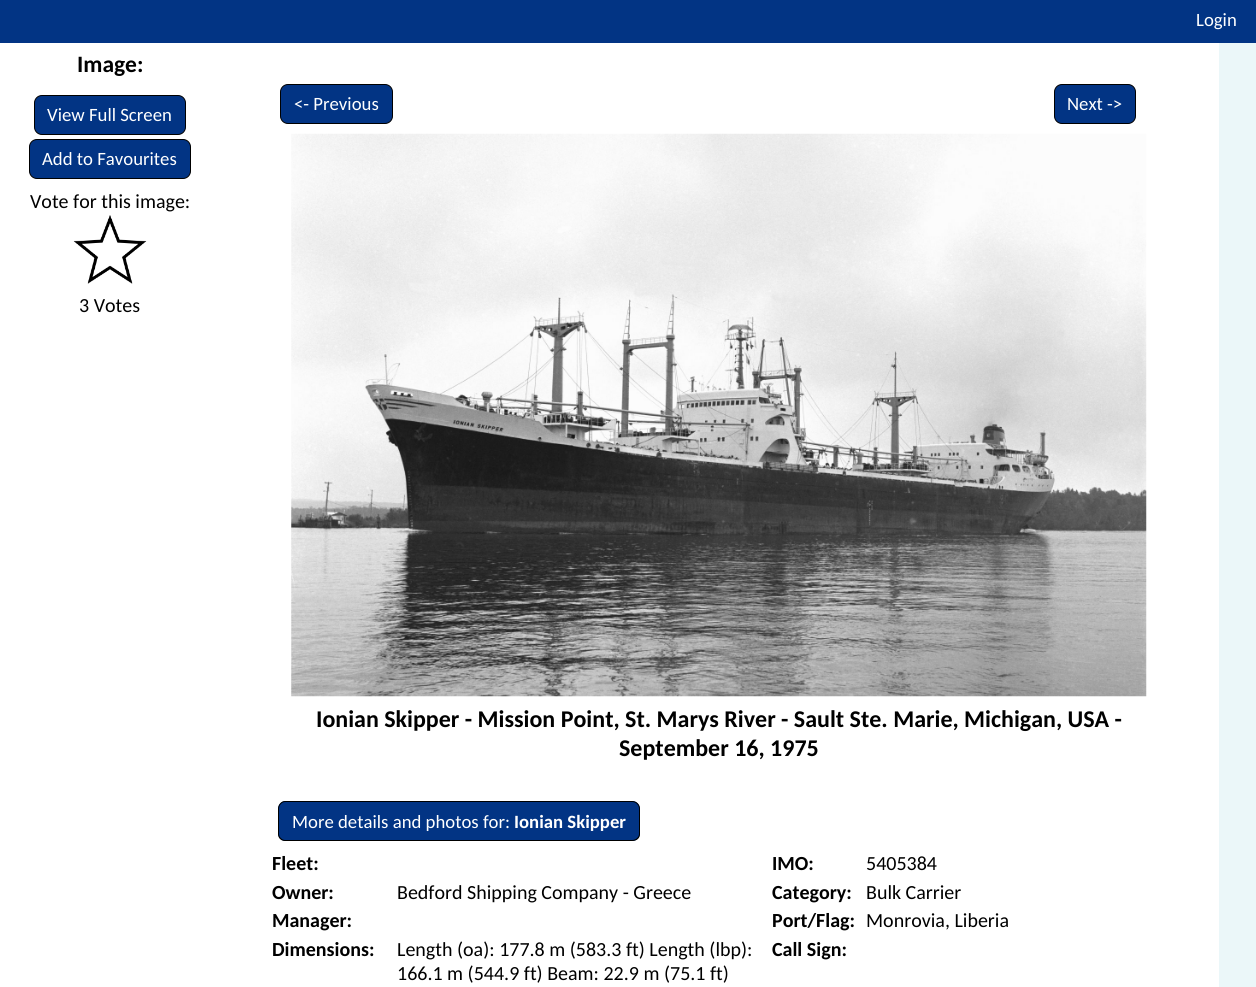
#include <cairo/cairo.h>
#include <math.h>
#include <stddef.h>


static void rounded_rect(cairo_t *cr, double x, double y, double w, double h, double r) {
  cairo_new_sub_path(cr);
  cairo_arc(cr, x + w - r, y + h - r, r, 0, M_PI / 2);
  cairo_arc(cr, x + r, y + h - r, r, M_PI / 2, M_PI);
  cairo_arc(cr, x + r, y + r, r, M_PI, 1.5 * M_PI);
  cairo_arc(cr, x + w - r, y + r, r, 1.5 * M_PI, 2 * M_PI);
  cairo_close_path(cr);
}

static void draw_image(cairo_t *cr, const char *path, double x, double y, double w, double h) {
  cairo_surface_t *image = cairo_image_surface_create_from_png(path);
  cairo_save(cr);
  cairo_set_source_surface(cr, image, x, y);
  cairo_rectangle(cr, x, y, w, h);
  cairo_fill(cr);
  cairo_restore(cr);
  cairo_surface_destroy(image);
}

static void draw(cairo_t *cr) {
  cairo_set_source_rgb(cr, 235 / 255.0, 247 / 255.0, 249 / 255.0);
  cairo_paint(cr);
  cairo_set_source_rgb(cr, 2 / 255.0, 52 / 255.0, 132 / 255.0);
  cairo_rectangle(cr, 0, 0, 1256, 43);
  cairo_fill(cr);
  cairo_set_source_rgb(cr, 1, 1, 1);
  cairo_rectangle(cr, 0, 43, 1219, 944);
  cairo_fill(cr);
  cairo_set_source_rgb(cr, 2 / 255.0, 52 / 255.0, 132 / 255.0);
  rounded_rect(cr, 34.5, 95.5, 151, 39, 7.5);
  cairo_fill_preserve(cr);
  cairo_set_source_rgb(cr, 0, 0, 0);
  cairo_set_line_width(cr, 1);
  cairo_stroke(cr);
  cairo_set_source_rgb(cr, 2 / 255.0, 52 / 255.0, 132 / 255.0);
  rounded_rect(cr, 29.5, 139.5, 161, 39, 7.5);
  cairo_fill_preserve(cr);
  cairo_set_source_rgb(cr, 0, 0, 0);
  cairo_stroke(cr);
  draw_image(cr, "images/1.png", 73, 215, 74, 69);
  cairo_set_source_rgb(cr, 2 / 255.0, 52 / 255.0, 132 / 255.0);
  rounded_rect(cr, 280.5, 84.5, 112, 39, 7.5);
  cairo_fill_preserve(cr);
  cairo_set_source_rgb(cr, 0, 0, 0);
  cairo_stroke(cr);
  cairo_set_source_rgb(cr, 2 / 255.0, 52 / 255.0, 132 / 255.0);
  rounded_rect(cr, 1054.5, 84.5, 81, 39, 7.5);
  cairo_fill_preserve(cr);
  cairo_set_source_rgb(cr, 0, 0, 0);
  cairo_stroke(cr);
  draw_image(cr, "images/2.png", 291, 133, 856, 564);
  cairo_set_source_rgb(cr, 2 / 255.0, 52 / 255.0, 132 / 255.0);
  cairo_new_path(cr);
  cairo_move_to(cr, 286, 801);
  cairo_line_to(cr, 514, 801);
  cairo_line_to(cr, 514, 841);
  cairo_line_to(cr, 286, 841);
  cairo_curve_to(cr, 281.5, 841, 278, 837.5, 278, 833);
  cairo_line_to(cr, 278, 809);
  cairo_curve_to(cr, 278, 804.5, 281.5, 801, 286, 801);
  cairo_close_path(cr);
  cairo_fill(cr);
  cairo_set_source_rgb(cr, 0, 0, 0);
  cairo_set_fill_rule(cr, CAIRO_FILL_RULE_EVEN_ODD);
  cairo_new_path(cr);
  cairo_move_to(cr, 285, 801);
  cairo_line_to(cr, 514, 801);
  cairo_line_to(cr, 514, 841);
  cairo_line_to(cr, 285, 841);
  cairo_curve_to(cr, 281, 841, 278, 838, 278, 834);
  cairo_line_to(cr, 278, 809);
  cairo_curve_to(cr, 278, 805, 281, 801, 285, 801);
  cairo_close_path(cr);
  cairo_move_to(cr, 285, 802);
  cairo_line_to(cr, 514, 802);
  cairo_line_to(cr, 514, 840);
  cairo_line_to(cr, 285, 840);
  cairo_curve_to(cr, 282, 840, 279, 837, 279, 834);
  cairo_line_to(cr, 279, 809);
  cairo_curve_to(cr, 279, 805, 282, 802, 285, 802);
  cairo_close_path(cr);
  cairo_fill(cr);
  cairo_set_source_rgb(cr, 2 / 255.0, 52 / 255.0, 132 / 255.0);
  cairo_new_path(cr);
  cairo_move_to(cr, 514, 801);
  cairo_line_to(cr, 632, 801);
  cairo_curve_to(cr, 636.5, 801, 640, 804.5, 640, 809);
  cairo_line_to(cr, 640, 833);
  cairo_curve_to(cr, 640, 837.5, 636.5, 841, 632, 841);
  cairo_line_to(cr, 514, 841);
  cairo_close_path(cr);
  cairo_fill(cr);
  cairo_set_source_rgb(cr, 0, 0, 0);
  cairo_new_path(cr);
  cairo_move_to(cr, 514, 801);
  cairo_line_to(cr, 632, 801);
  cairo_curve_to(cr, 637, 801, 640, 805, 640, 809);
  cairo_line_to(cr, 640, 834);
  cairo_curve_to(cr, 640, 838, 637, 841, 632, 841);
  cairo_line_to(cr, 514, 841);
  cairo_close_path(cr);
  cairo_move_to(cr, 514, 802);
  cairo_line_to(cr, 632, 802);
  cairo_curve_to(cr, 636, 802, 639, 805, 639, 809);
  cairo_line_to(cr, 639, 834);
  cairo_curve_to(cr, 639, 837, 636, 840, 632, 840);
  cairo_line_to(cr, 514, 840);
  cairo_close_path(cr);
  cairo_fill(cr);
  cairo_select_font_face(cr, "Carlito", CAIRO_FONT_SLANT_NORMAL, CAIRO_FONT_WEIGHT_NORMAL);
  cairo_set_font_size(cr, 18.75);
  cairo_set_source_rgb(cr, 1, 1, 1);
  cairo_move_to(cr, 1196, 26);
  cairo_show_text(cr, "Login");
  cairo_select_font_face(cr, "Carlito", CAIRO_FONT_SLANT_NORMAL, CAIRO_FONT_WEIGHT_BOLD);
  cairo_set_font_size(cr, 23.5);
  cairo_set_source_rgb(cr, 0, 0, 0);
  cairo_move_to(cr, 77, 72);
  cairo_show_text(cr, "Image:");
  cairo_select_font_face(cr, "Carlito", CAIRO_FONT_SLANT_NORMAL, CAIRO_FONT_WEIGHT_NORMAL);
  cairo_set_font_size(cr, 18.75);
  cairo_set_source_rgb(cr, 1, 1, 1);
  cairo_move_to(cr, 47, 121);
  cairo_show_text(cr, "View Full Screen");
  cairo_move_to(cr, 42, 165);
  cairo_show_text(cr, "Add to Favourites");
  cairo_set_font_size(cr, 20);
  cairo_set_source_rgb(cr, 0, 0, 0);
  cairo_move_to(cr, 30, 208);
  cairo_show_text(cr, "Vote for this image:");
  cairo_move_to(cr, 79, 312);
  cairo_show_text(cr, "3 Votes");
  cairo_set_font_size(cr, 18.75);
  cairo_set_source_rgb(cr, 1, 1, 1);
  cairo_move_to(cr, 294, 110);
  cairo_show_text(cr, "<- Previous");
  cairo_move_to(cr, 1067, 110);
  cairo_show_text(cr, "Next ->");
  cairo_select_font_face(cr, "Carlito", CAIRO_FONT_SLANT_NORMAL, CAIRO_FONT_WEIGHT_BOLD);
  cairo_set_font_size(cr, 24);
  cairo_set_source_rgb(cr, 0, 0, 0);
  cairo_move_to(cr, 316, 727);
  cairo_show_text(cr, "Ionian Skipper - Mission Point, St. Marys River - Sault Ste. Marie, Michigan, USA -");
  cairo_move_to(cr, 619, 756);
  cairo_show_text(cr, "September 16, 1975");
  cairo_select_font_face(cr, "Carlito", CAIRO_FONT_SLANT_NORMAL, CAIRO_FONT_WEIGHT_NORMAL);
  cairo_set_font_size(cr, 18.75);
  cairo_set_source_rgb(cr, 1, 1, 1);
  cairo_move_to(cr, 292, 828);
  cairo_show_text(cr, "More details and photos for:");
  cairo_select_font_face(cr, "Carlito", CAIRO_FONT_SLANT_NORMAL, CAIRO_FONT_WEIGHT_BOLD);
  cairo_move_to(cr, 514, 828);
  cairo_show_text(cr, "Ionian Skipper");
  cairo_set_font_size(cr, 20);
  cairo_set_source_rgb(cr, 0, 0, 0);
  cairo_move_to(cr, 272, 870);
  cairo_show_text(cr, "Fleet:");
  cairo_move_to(cr, 772, 870);
  cairo_show_text(cr, "IMO:");
  cairo_select_font_face(cr, "Carlito", CAIRO_FONT_SLANT_NORMAL, CAIRO_FONT_WEIGHT_NORMAL);
  cairo_move_to(cr, 866, 870);
  cairo_show_text(cr, "5405384");
  cairo_select_font_face(cr, "Carlito", CAIRO_FONT_SLANT_NORMAL, CAIRO_FONT_WEIGHT_BOLD);
  cairo_move_to(cr, 272, 899);
  cairo_show_text(cr, "Owner:");
  cairo_select_font_face(cr, "Carlito", CAIRO_FONT_SLANT_NORMAL, CAIRO_FONT_WEIGHT_NORMAL);
  cairo_move_to(cr, 397, 899);
  cairo_show_text(cr, "Bedford Shipping Company - Greece");
  cairo_select_font_face(cr, "Carlito", CAIRO_FONT_SLANT_NORMAL, CAIRO_FONT_WEIGHT_BOLD);
  cairo_move_to(cr, 772, 899);
  cairo_show_text(cr, "Category:");
  cairo_select_font_face(cr, "Carlito", CAIRO_FONT_SLANT_NORMAL, CAIRO_FONT_WEIGHT_NORMAL);
  cairo_move_to(cr, 866, 899);
  cairo_show_text(cr, "Bulk Carrier");
  cairo_select_font_face(cr, "Carlito", CAIRO_FONT_SLANT_NORMAL, CAIRO_FONT_WEIGHT_BOLD);
  cairo_move_to(cr, 272, 927);
  cairo_show_text(cr, "Manager:");
  cairo_move_to(cr, 772, 927);
  cairo_show_text(cr, "Port/Flag:");
  cairo_select_font_face(cr, "Carlito", CAIRO_FONT_SLANT_NORMAL, CAIRO_FONT_WEIGHT_NORMAL);
  cairo_move_to(cr, 866, 927);
  cairo_show_text(cr, "Monrovia, Liberia");
  cairo_select_font_face(cr, "Carlito", CAIRO_FONT_SLANT_NORMAL, CAIRO_FONT_WEIGHT_BOLD);
  cairo_move_to(cr, 272, 956);
  cairo_show_text(cr, "Dimensions:");
  cairo_select_font_face(cr, "Carlito", CAIRO_FONT_SLANT_NORMAL, CAIRO_FONT_WEIGHT_NORMAL);
  cairo_move_to(cr, 397, 956);
  cairo_show_text(cr, "Length (oa): 177.8 m (583.3 ft) Length (lbp):");
  cairo_move_to(cr, 397, 980);
  cairo_show_text(cr, "166.1 m (544.9 ft) Beam: 22.9 m (75.1 ft)");
  cairo_select_font_face(cr, "Carlito", CAIRO_FONT_SLANT_NORMAL, CAIRO_FONT_WEIGHT_BOLD);
  cairo_move_to(cr, 772, 956);
  cairo_show_text(cr, "Call Sign:");
}

int main(void) {
  cairo_surface_t *surface = cairo_image_surface_create(CAIRO_FORMAT_RGB24, 1256, 987);
  cairo_t *cr = cairo_create(surface);
  cairo_font_options_t *options = cairo_font_options_create();
  cairo_font_options_set_hint_metrics(options, CAIRO_HINT_METRICS_OFF);
  cairo_font_options_set_hint_style(options, CAIRO_HINT_STYLE_NONE);
  cairo_set_font_options(cr, options);
  cairo_set_miter_limit(cr, 4);
  draw(cr);
  cairo_surface_write_to_png(surface, "out.png");
  cairo_font_options_destroy(options);
  cairo_destroy(cr);
  cairo_surface_destroy(surface);
  return 0;
}
